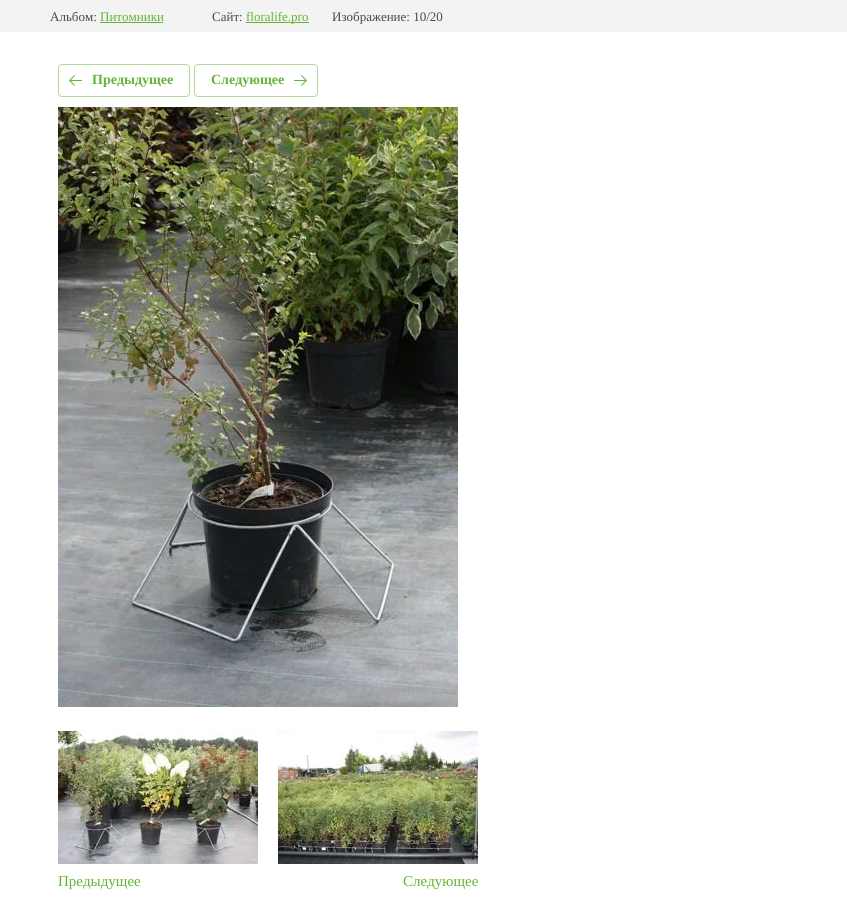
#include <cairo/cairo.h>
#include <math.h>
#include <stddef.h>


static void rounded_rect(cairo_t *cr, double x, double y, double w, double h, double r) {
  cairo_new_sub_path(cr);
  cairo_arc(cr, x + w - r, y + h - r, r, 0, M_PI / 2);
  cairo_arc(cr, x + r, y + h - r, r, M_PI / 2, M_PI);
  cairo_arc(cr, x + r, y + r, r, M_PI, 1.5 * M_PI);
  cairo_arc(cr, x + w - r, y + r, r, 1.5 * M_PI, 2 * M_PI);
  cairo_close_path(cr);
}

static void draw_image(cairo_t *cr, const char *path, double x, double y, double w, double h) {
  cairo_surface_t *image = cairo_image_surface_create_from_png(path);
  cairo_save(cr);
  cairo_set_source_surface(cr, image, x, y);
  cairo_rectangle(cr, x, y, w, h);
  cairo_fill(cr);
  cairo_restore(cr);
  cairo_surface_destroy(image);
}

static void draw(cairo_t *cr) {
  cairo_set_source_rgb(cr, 1, 1, 1);
  cairo_paint(cr);
  cairo_set_source_rgb(cr, 243 / 255.0, 243 / 255.0, 243 / 255.0);
  cairo_rectangle(cr, 0, 0, 847, 32);
  cairo_fill(cr);
  cairo_set_source_rgb(cr, 99 / 255.0, 180 / 255.0, 53 / 255.0);
  cairo_rectangle(cr, 100, 22, 63, 1);
  cairo_fill(cr);
  cairo_rectangle(cr, 246, 22, 63, 1);
  cairo_fill(cr);
  rounded_rect(cr, 58.5, 64.5, 131, 32, 3.5);
  cairo_set_source_rgb(cr, 177 / 255.0, 218 / 255.0, 154 / 255.0);
  cairo_set_line_width(cr, 1);
  cairo_stroke(cr);
  draw_image(cr, "images/1.png", 69, 75, 13, 11);
  rounded_rect(cr, 194.5, 64.5, 123, 32, 3.5);
  cairo_stroke(cr);
  draw_image(cr, "images/2.png", 294, 75, 13, 11);
  draw_image(cr, "images/3.png", 58, 107, 400, 600);
  draw_image(cr, "images/4.png", 58, 731, 200, 133);
  draw_image(cr, "images/5.png", 278, 731, 200, 133);
  cairo_select_font_face(cr, "Liberation Serif", CAIRO_FONT_SLANT_NORMAL, CAIRO_FONT_WEIGHT_NORMAL);
  cairo_set_font_size(cr, 13);
  cairo_set_source_rgb(cr, 72 / 255.0, 72 / 255.0, 72 / 255.0);
  cairo_move_to(cr, 50, 21);
  cairo_show_text(cr, "Альбом:");
  cairo_set_source_rgb(cr, 99 / 255.0, 180 / 255.0, 53 / 255.0);
  cairo_move_to(cr, 100, 21);
  cairo_show_text(cr, "Питомники");
  cairo_set_source_rgb(cr, 72 / 255.0, 72 / 255.0, 72 / 255.0);
  cairo_move_to(cr, 212, 21);
  cairo_show_text(cr, "Сайт:");
  cairo_set_source_rgb(cr, 99 / 255.0, 180 / 255.0, 53 / 255.0);
  cairo_move_to(cr, 246, 21);
  cairo_show_text(cr, "floralife.pro");
  cairo_set_source_rgb(cr, 72 / 255.0, 72 / 255.0, 72 / 255.0);
  cairo_move_to(cr, 332, 21);
  cairo_show_text(cr, "Изображение: 10/20");
  cairo_select_font_face(cr, "Liberation Serif", CAIRO_FONT_SLANT_NORMAL, CAIRO_FONT_WEIGHT_BOLD);
  cairo_set_font_size(cr, 14);
  cairo_set_source_rgb(cr, 99 / 255.0, 180 / 255.0, 53 / 255.0);
  cairo_move_to(cr, 92, 84);
  cairo_show_text(cr, "Предыдущее");
  cairo_move_to(cr, 211, 84);
  cairo_show_text(cr, "Следующее");
  cairo_select_font_face(cr, "Liberation Serif", CAIRO_FONT_SLANT_NORMAL, CAIRO_FONT_WEIGHT_NORMAL);
  cairo_set_font_size(cr, 15);
  cairo_move_to(cr, 58, 886);
  cairo_show_text(cr, "Предыдущее");
  cairo_move_to(cr, 403, 886);
  cairo_show_text(cr, "Следующее");
}

int main(void) {
  cairo_surface_t *surface = cairo_image_surface_create(CAIRO_FORMAT_RGB24, 847, 905);
  cairo_t *cr = cairo_create(surface);
  cairo_font_options_t *options = cairo_font_options_create();
  cairo_font_options_set_hint_metrics(options, CAIRO_HINT_METRICS_OFF);
  cairo_font_options_set_hint_style(options, CAIRO_HINT_STYLE_NONE);
  cairo_set_font_options(cr, options);
  cairo_set_miter_limit(cr, 4);
  draw(cr);
  cairo_surface_write_to_png(surface, "out.png");
  cairo_font_options_destroy(options);
  cairo_destroy(cr);
  cairo_surface_destroy(surface);
  return 0;
}
